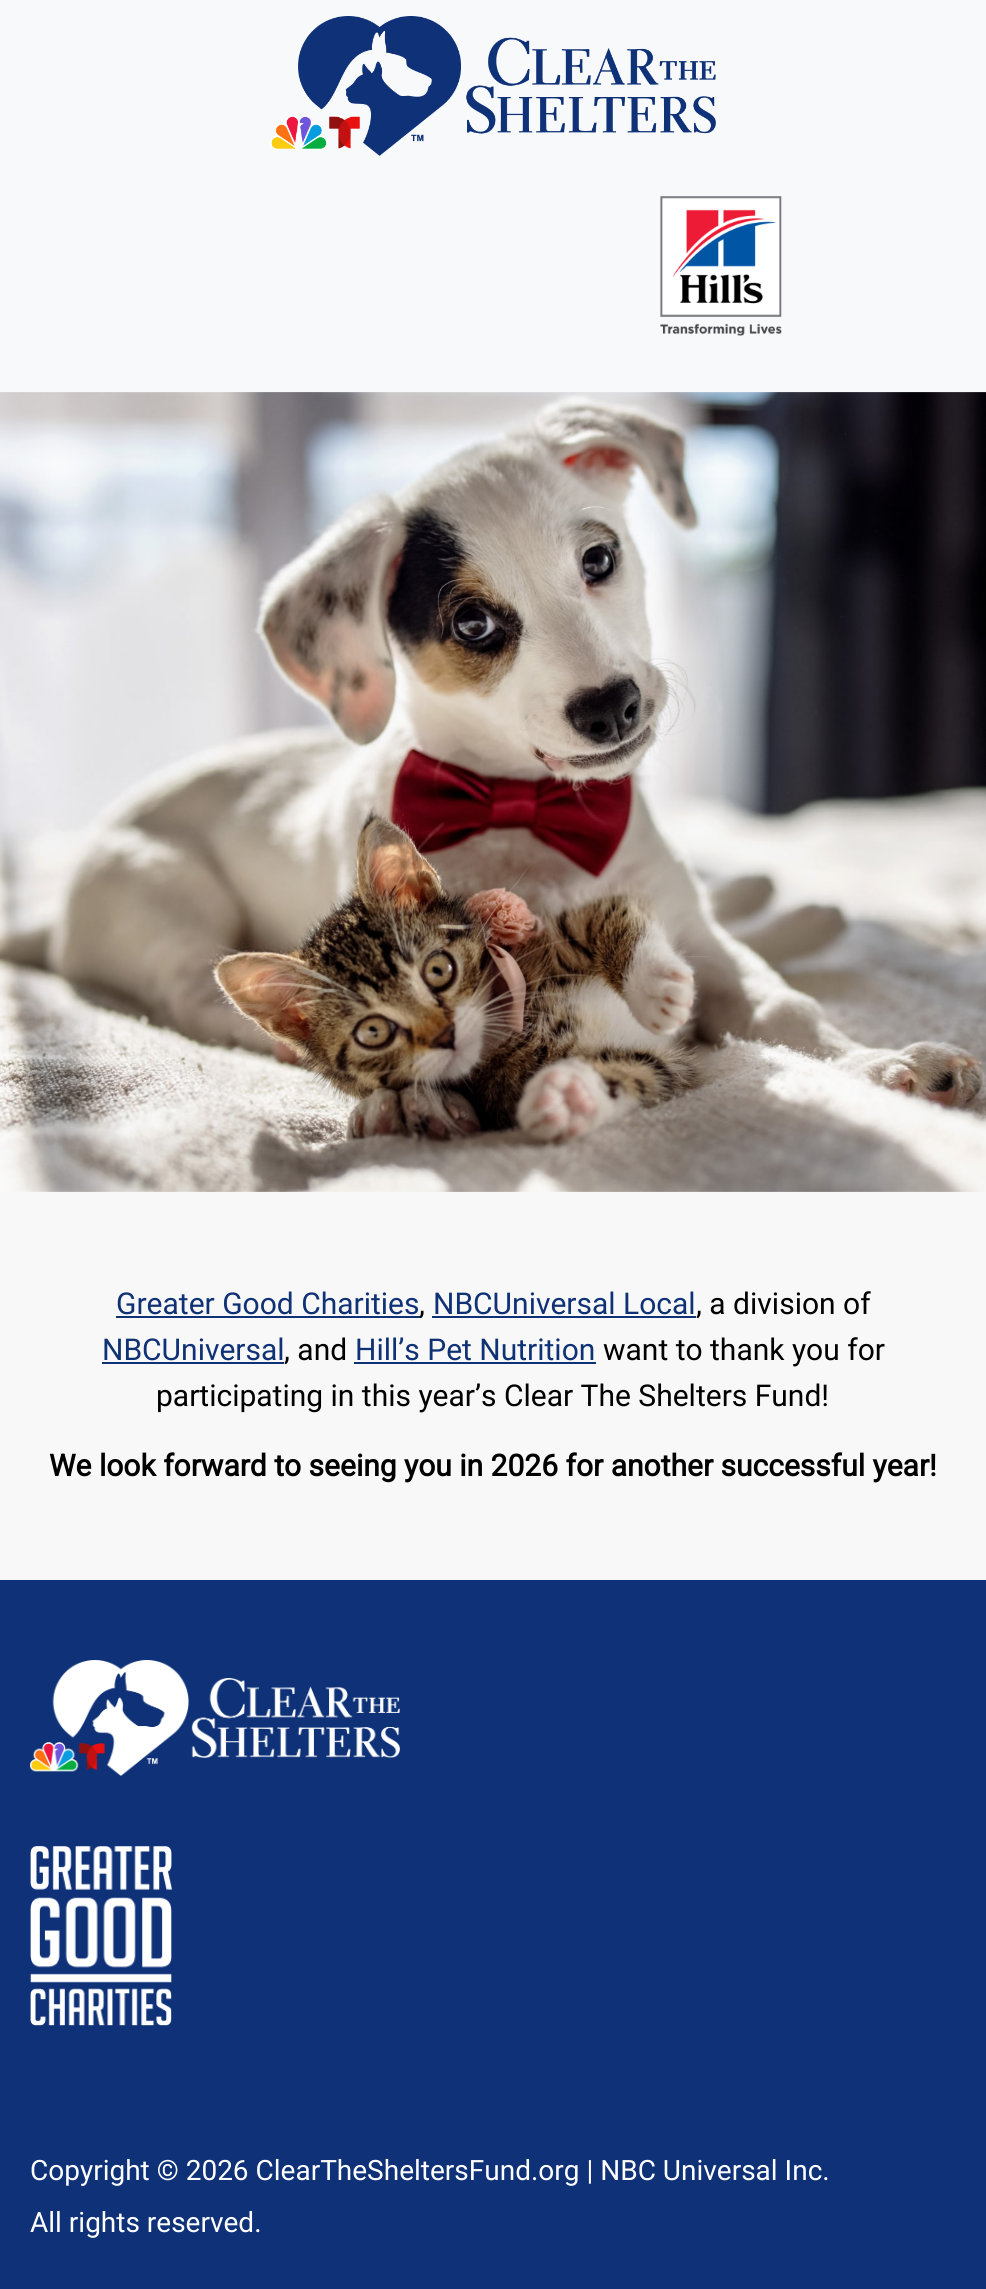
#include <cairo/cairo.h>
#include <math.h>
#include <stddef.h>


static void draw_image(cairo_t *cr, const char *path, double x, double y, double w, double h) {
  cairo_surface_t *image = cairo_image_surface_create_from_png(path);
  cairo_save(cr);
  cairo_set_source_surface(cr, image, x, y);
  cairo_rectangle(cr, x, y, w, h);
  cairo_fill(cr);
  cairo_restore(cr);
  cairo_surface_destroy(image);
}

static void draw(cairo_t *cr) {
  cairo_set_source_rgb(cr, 1, 1, 1);
  cairo_paint(cr);
  cairo_set_source_rgb(cr, 248 / 255.0, 249 / 255.0, 250 / 255.0);
  cairo_rectangle(cr, 0, 0, 986, 392);
  cairo_fill(cr);
  draw_image(cr, "images/1.png", 270, 16, 446, 140);
  draw_image(cr, "images/2.png", 660, 196, 122, 140);
  draw_image(cr, "images/3.png", 0, 392, 986, 800);
  cairo_set_source_rgb(cr, 248 / 255.0, 248 / 255.0, 248 / 255.0);
  cairo_rectangle(cr, 0, 1192, 986, 388);
  cairo_fill(cr);
  cairo_set_source_rgb(cr, 15 / 255.0, 49 / 255.0, 117 / 255.0);
  cairo_rectangle(cr, 116, 1316, 304, 2);
  cairo_fill(cr);
  cairo_rectangle(cr, 432, 1316, 264, 2);
  cairo_fill(cr);
  cairo_rectangle(cr, 102, 1362, 182, 2);
  cairo_fill(cr);
  cairo_rectangle(cr, 354, 1362, 242, 2);
  cairo_fill(cr);
  cairo_set_source_rgb(cr, 14 / 255.0, 49 / 255.0, 120 / 255.0);
  cairo_rectangle(cr, 0, 1580, 986, 709);
  cairo_fill(cr);
  draw_image(cr, "images/4.png", 30, 1660, 370, 116);
  draw_image(cr, "images/5.png", 30, 1846, 142, 180);
  cairo_select_font_face(cr, "Roboto", CAIRO_FONT_SLANT_NORMAL, CAIRO_FONT_WEIGHT_NORMAL);
  cairo_set_font_size(cr, 30);
  cairo_set_source_rgb(cr, 15 / 255.0, 49 / 255.0, 117 / 255.0);
  cairo_move_to(cr, 116, 1314);
  cairo_show_text(cr, "Greater Good Charities");
  cairo_set_source_rgb(cr, 0, 0, 0);
  cairo_move_to(cr, 419, 1314);
  cairo_show_text(cr, ",");
  cairo_set_source_rgb(cr, 15 / 255.0, 49 / 255.0, 117 / 255.0);
  cairo_move_to(cr, 433, 1314);
  cairo_show_text(cr, "NBCUniversal Local");
  cairo_set_source_rgb(cr, 0, 0, 0);
  cairo_move_to(cr, 696, 1314);
  cairo_show_text(cr, ", a division of");
  cairo_set_source_rgb(cr, 15 / 255.0, 49 / 255.0, 117 / 255.0);
  cairo_move_to(cr, 102, 1360);
  cairo_show_text(cr, "NBCUniversal");
  cairo_set_source_rgb(cr, 0, 0, 0);
  cairo_move_to(cr, 284, 1360);
  cairo_show_text(cr, ", and");
  cairo_set_source_rgb(cr, 15 / 255.0, 49 / 255.0, 117 / 255.0);
  cairo_move_to(cr, 355, 1360);
  cairo_show_text(cr, "Hill’s Pet Nutrition");
  cairo_set_source_rgb(cr, 0, 0, 0);
  cairo_move_to(cr, 603, 1360);
  cairo_show_text(cr, "want to thank you for");
  cairo_move_to(cr, 156, 1406);
  cairo_show_text(cr, "participating in this year’s Clear The Shelters Fund!");
  cairo_select_font_face(cr, "Roboto", CAIRO_FONT_SLANT_NORMAL, CAIRO_FONT_WEIGHT_BOLD);
  cairo_move_to(cr, 49, 1476);
  cairo_show_text(cr, "We look forward to seeing you in 2026 for another successful year!");
  cairo_select_font_face(cr, "Roboto", CAIRO_FONT_SLANT_NORMAL, CAIRO_FONT_WEIGHT_NORMAL);
  cairo_set_font_size(cr, 28);
  cairo_set_source_rgb(cr, 1, 1, 1);
  cairo_move_to(cr, 30, 2180);
  cairo_show_text(cr, "Copyright © 2026 ClearTheSheltersFund.org | NBC Universal Inc.");
  cairo_move_to(cr, 30, 2232);
  cairo_show_text(cr, "All rights reserved.");
}

int main(void) {
  cairo_surface_t *surface = cairo_image_surface_create(CAIRO_FORMAT_RGB24, 986, 2289);
  cairo_t *cr = cairo_create(surface);
  cairo_font_options_t *options = cairo_font_options_create();
  cairo_font_options_set_hint_metrics(options, CAIRO_HINT_METRICS_OFF);
  cairo_font_options_set_hint_style(options, CAIRO_HINT_STYLE_NONE);
  cairo_set_font_options(cr, options);
  cairo_set_miter_limit(cr, 4);
  draw(cr);
  cairo_surface_write_to_png(surface, "out.png");
  cairo_font_options_destroy(options);
  cairo_destroy(cr);
  cairo_surface_destroy(surface);
  return 0;
}
